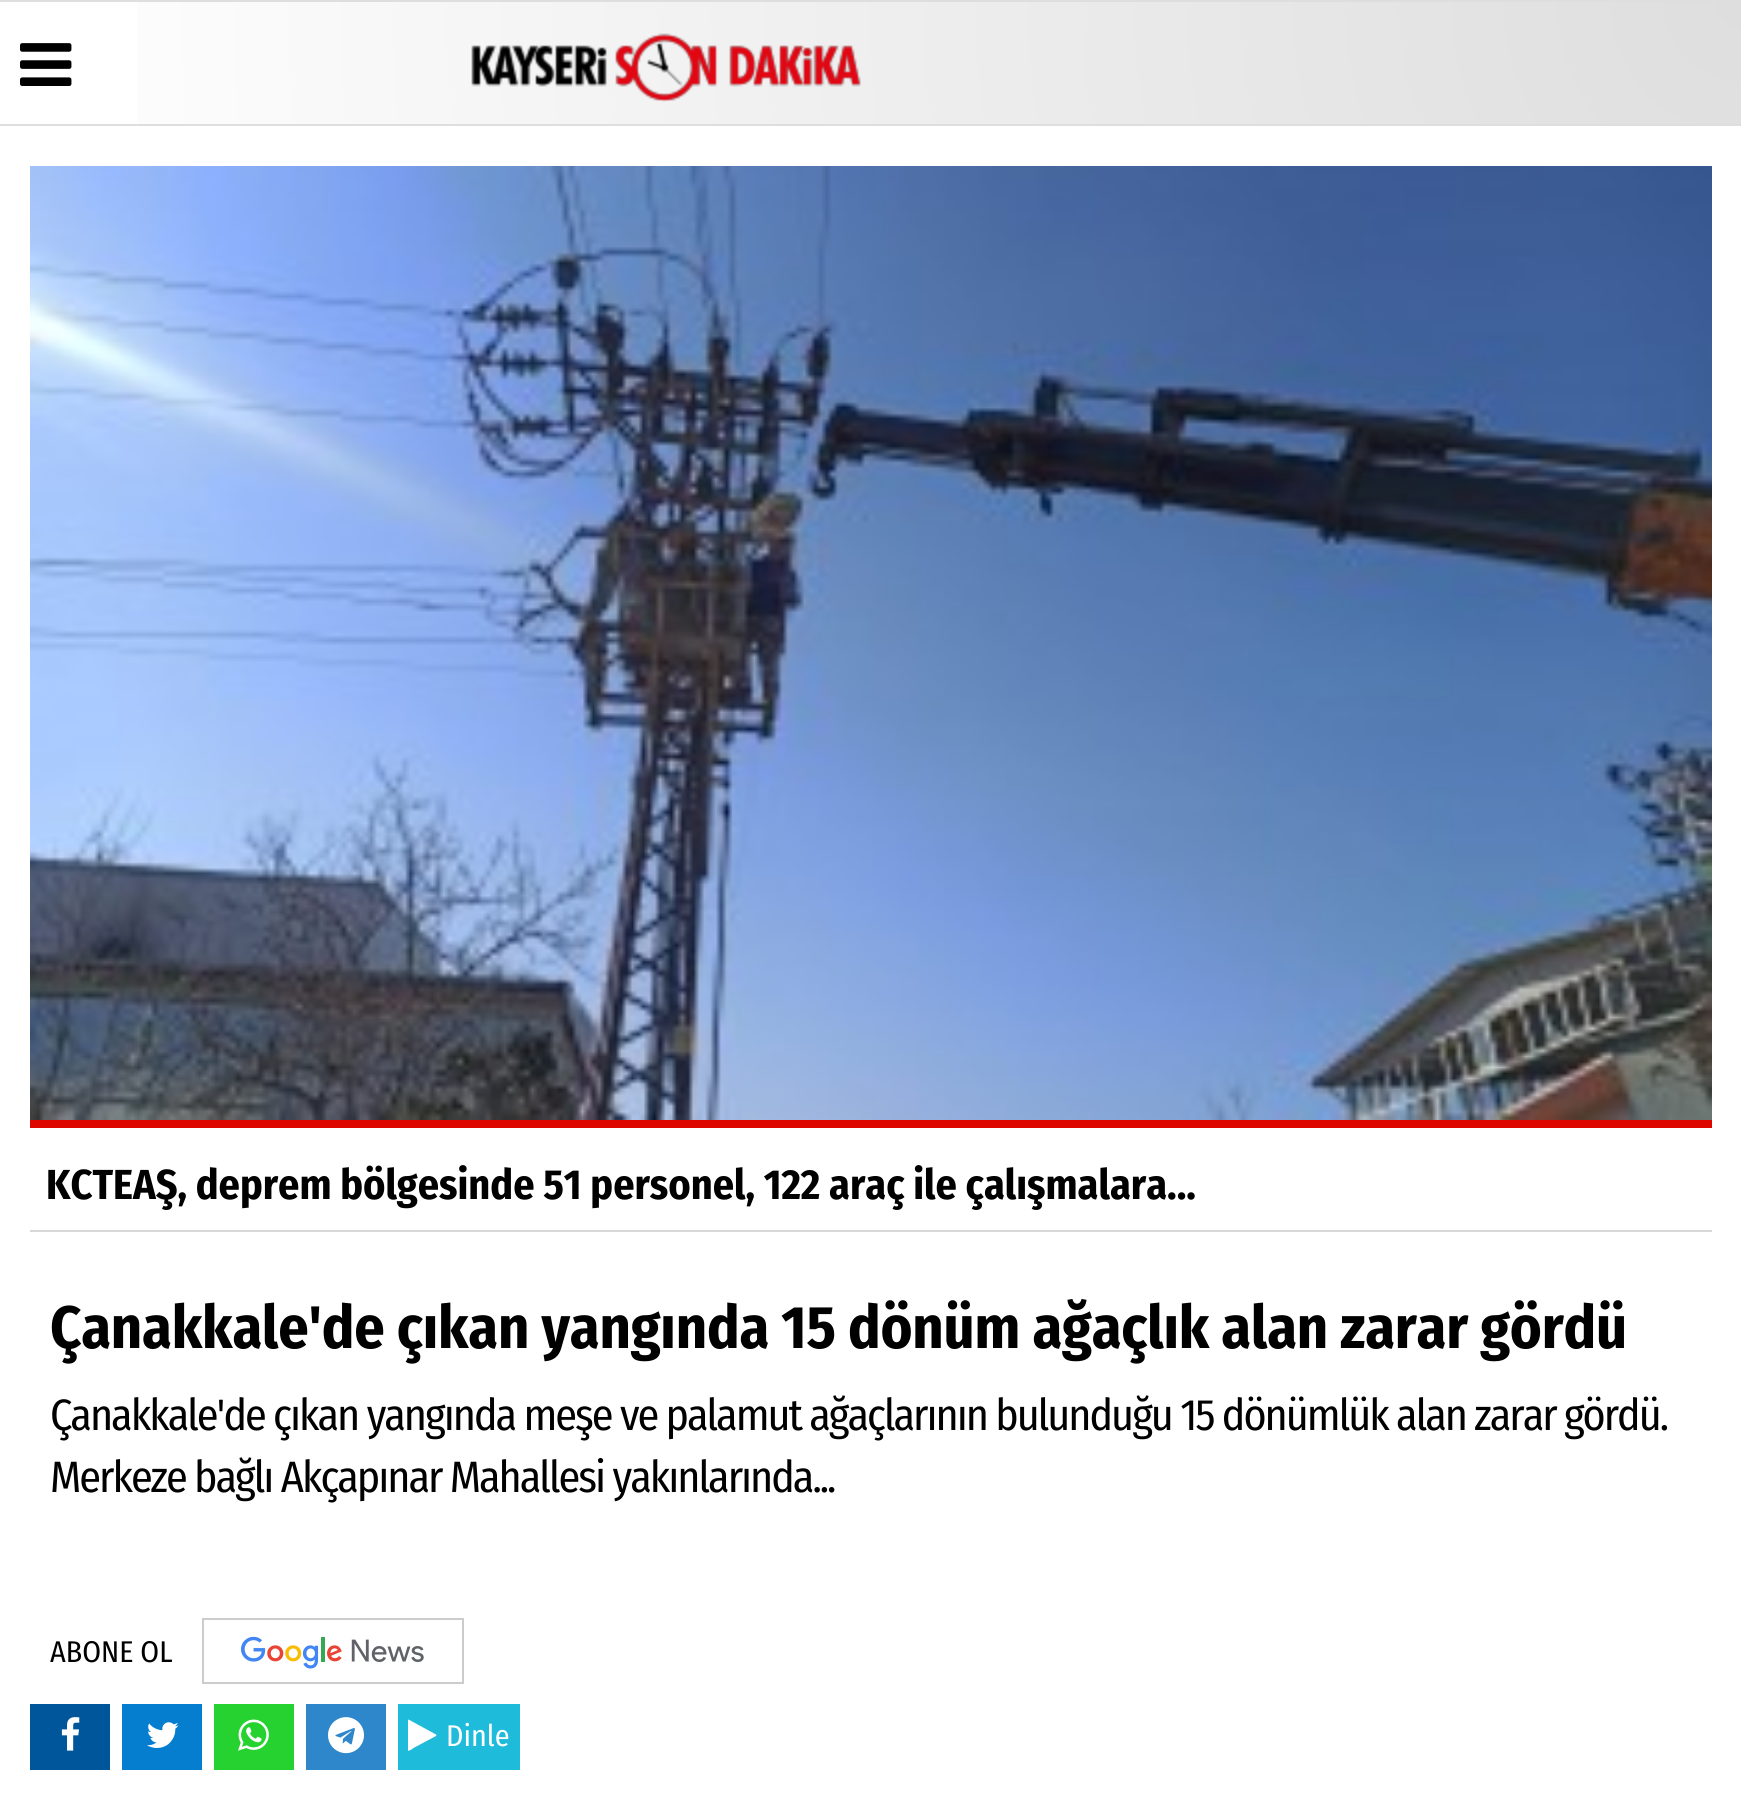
#include <cairo/cairo.h>
#include <math.h>
#include <stddef.h>


static void draw_spaced(cairo_t *cr, double x, double y, const char *s, double letter, double word) {
  cairo_move_to(cr, x, y);
  while (*s) {
    char ch[5] = {0};
    int n = 0;
    do ch[n++] = *s++; while ((*s & 0xC0) == 0x80);
    cairo_show_text(cr, ch);
    cairo_rel_move_to(cr, letter + word * (*ch == ' '), 0);
  }
}

static void draw_image(cairo_t *cr, const char *path, double x, double y, double w, double h) {
  cairo_surface_t *image = cairo_image_surface_create_from_png(path);
  cairo_save(cr);
  cairo_set_source_surface(cr, image, x, y);
  cairo_rectangle(cr, x, y, w, h);
  cairo_fill(cr);
  cairo_restore(cr);
  cairo_surface_destroy(image);
}

static void draw(cairo_t *cr) {
  cairo_pattern_t *gradient;
  cairo_set_source_rgb(cr, 1, 1, 1);
  cairo_paint(cr);
  gradient = cairo_pattern_create_radial(1742, 2, 0, 1742, 2, 1746);
  cairo_pattern_add_color_stop_rgba(gradient, 0, 222 / 255.0, 222 / 255.0, 222 / 255.0, 1);
  cairo_pattern_add_color_stop_rgba(gradient, 1, 1, 1, 1, 1);
  cairo_set_source(cr, gradient);
  cairo_pattern_destroy(gradient);
  cairo_rectangle(cr, 137, 2, 1604, 122);
  cairo_fill(cr);
  cairo_set_source_rgb(cr, 222 / 255.0, 222 / 255.0, 222 / 255.0);
  cairo_rectangle(cr, 0, 0, 1741, 2);
  cairo_fill(cr);
  cairo_rectangle(cr, 0, 124, 1741, 2);
  cairo_fill(cr);
  draw_image(cr, "images/1.png", 20, 43, 52, 43);
  draw_image(cr, "images/2.png", 471, 33, 390, 69);
  cairo_set_source_rgb(cr, 216 / 255.0, 216 / 255.0, 216 / 255.0);
  cairo_rectangle(cr, 30, 1230, 1682, 2);
  cairo_fill(cr);
  cairo_set_source_rgb(cr, 222 / 255.0, 7 / 255.0, 0);
  cairo_rectangle(cr, 30, 1120, 1682, 8);
  cairo_fill(cr);
  draw_image(cr, "images/3.png", 30, 166, 1682, 954);
  cairo_rectangle(cr, 203, 1619, 260, 64);
  cairo_set_source_rgb(cr, 204 / 255.0, 204 / 255.0, 204 / 255.0);
  cairo_stroke(cr);
  draw_image(cr, "images/4.png", 241, 1636, 183, 33);
  cairo_set_source_rgb(cr, 0, 86 / 255.0, 154 / 255.0);
  cairo_rectangle(cr, 30, 1704, 80, 66);
  cairo_fill(cr);
  draw_image(cr, "images/5.png", 61, 1717, 19, 34);
  cairo_set_source_rgb(cr, 5 / 255.0, 126 / 255.0, 208 / 255.0);
  cairo_rectangle(cr, 122, 1704, 80, 66);
  cairo_fill(cr);
  draw_image(cr, "images/6.png", 147, 1722, 32, 26);
  cairo_set_source_rgb(cr, 37 / 255.0, 210 / 255.0, 47 / 255.0);
  cairo_rectangle(cr, 214, 1704, 80, 66);
  cairo_fill(cr);
  draw_image(cr, "images/7.png", 238, 1719, 31, 32);
  cairo_set_source_rgb(cr, 46 / 255.0, 135 / 255.0, 202 / 255.0);
  cairo_rectangle(cr, 306, 1704, 80, 66);
  cairo_fill(cr);
  draw_image(cr, "images/8.png", 328, 1717, 36, 37);
  cairo_set_source_rgb(cr, 30 / 255.0, 187 / 255.0, 218 / 255.0);
  cairo_rectangle(cr, 398, 1704, 122, 66);
  cairo_fill(cr);
  cairo_set_source_rgb(cr, 1, 1, 1);
  cairo_new_path(cr);
  cairo_move_to(cr, 436, 1736);
  cairo_line_to(cr, 413.5, 1748);
  cairo_curve_to(cr, 413, 1748.5, 409, 1751.5, 408, 1750.5);
  cairo_line_to(cr, 408, 1720);
  cairo_line_to(cr, 408.5, 1719.5);
  cairo_line_to(cr, 436, 1734.5);
  cairo_line_to(cr, 436.5, 1735);
  cairo_close_path(cr);
  cairo_fill(cr);
  cairo_select_font_face(cr, "Fira Sans Condensed", CAIRO_FONT_SLANT_NORMAL, CAIRO_FONT_WEIGHT_BOLD);
  cairo_set_font_size(cr, 42);
  cairo_set_source_rgb(cr, 0, 0, 0);
  cairo_move_to(cr, 46, 1199);
  cairo_show_text(cr, "KCTEAŞ, deprem bölgesinde 51 personel, 122 araç ile çalışmalara...");
  cairo_set_font_size(cr, 60);
  draw_spaced(cr, 50, 1348, "Çanakkale'de çıkan yangında 15 dönüm ağaçlık alan zarar gördü", -0.2, 0);
  cairo_select_font_face(cr, "Fira Sans Condensed", CAIRO_FONT_SLANT_NORMAL, CAIRO_FONT_WEIGHT_NORMAL);
  cairo_set_font_size(cr, 44);
  draw_spaced(cr, 50, 1430, "Çanakkale'de çıkan yangında meşe ve palamut ağaçlarının bulunduğu 15 dönümlük alan zarar gördü.", -2, 0);
  draw_spaced(cr, 50, 1492, "Merkeze bağlı Akçapınar Mahallesi yakınlarında...", -2, 0);
  cairo_set_font_size(cr, 30);
  cairo_move_to(cr, 50, 1662);
  cairo_show_text(cr, "ABONE OL");
  cairo_set_source_rgb(cr, 1, 1, 1);
  cairo_move_to(cr, 446, 1746);
  cairo_show_text(cr, "Dinle");
}

int main(void) {
  cairo_surface_t *surface = cairo_image_surface_create(CAIRO_FORMAT_RGB24, 1741, 1801);
  cairo_t *cr = cairo_create(surface);
  cairo_font_options_t *options = cairo_font_options_create();
  cairo_font_options_set_hint_metrics(options, CAIRO_HINT_METRICS_OFF);
  cairo_font_options_set_hint_style(options, CAIRO_HINT_STYLE_NONE);
  cairo_set_font_options(cr, options);
  cairo_set_miter_limit(cr, 4);
  draw(cr);
  cairo_surface_write_to_png(surface, "out.png");
  cairo_font_options_destroy(options);
  cairo_destroy(cr);
  cairo_surface_destroy(surface);
  return 0;
}
